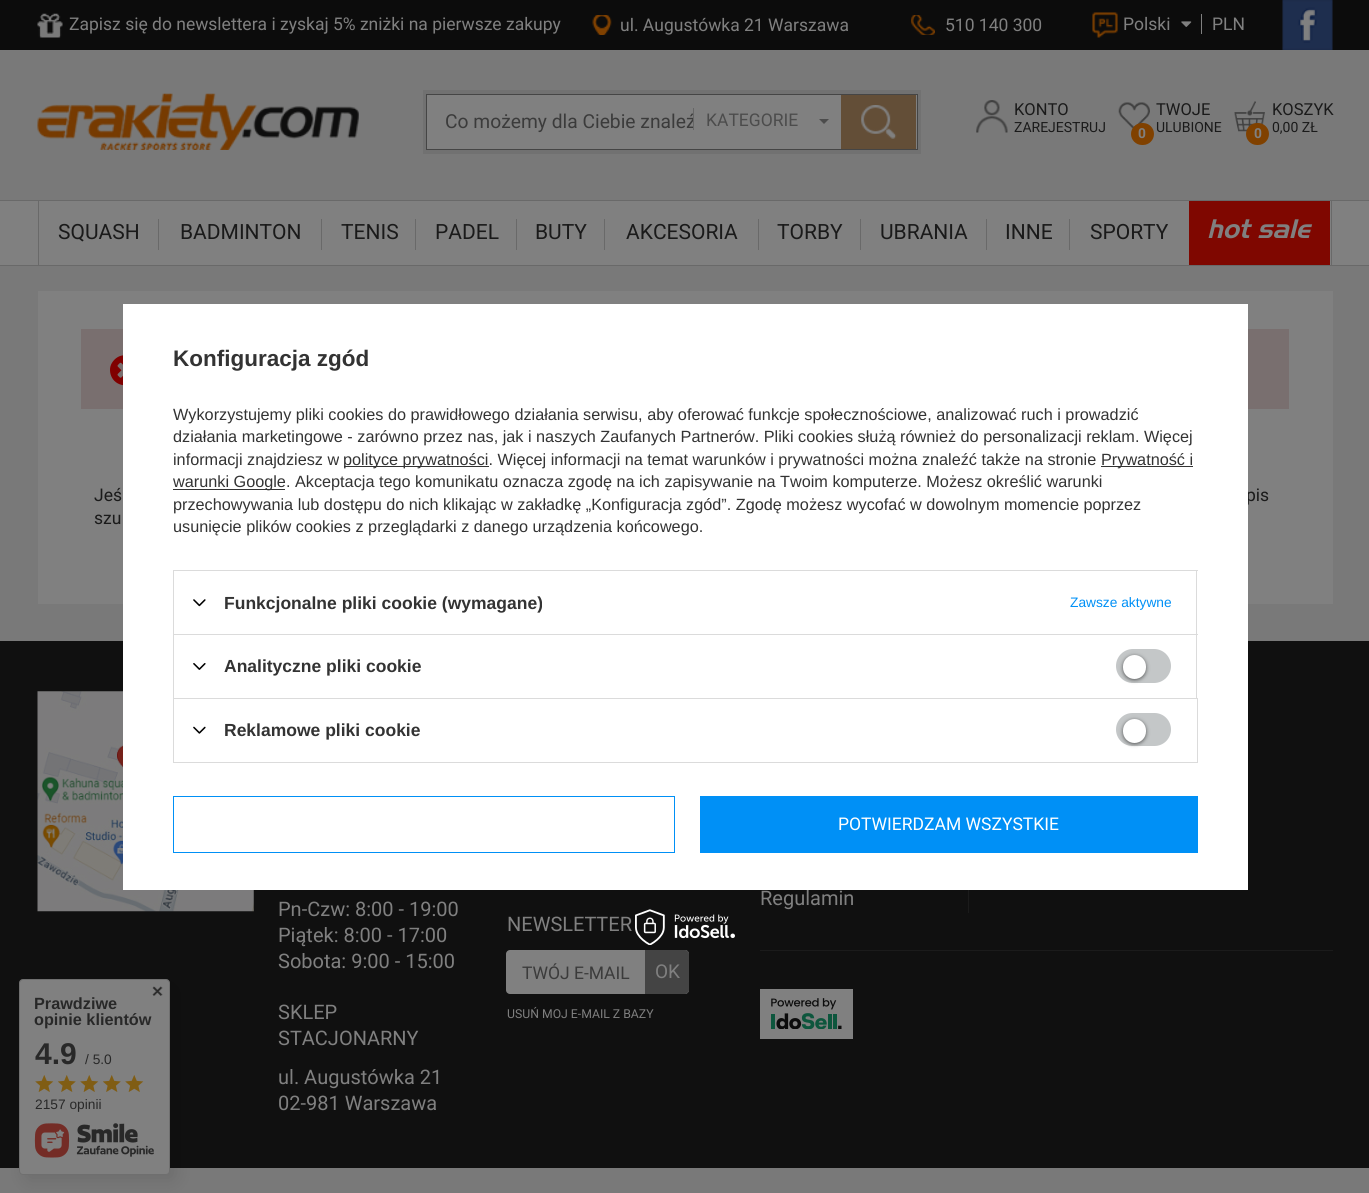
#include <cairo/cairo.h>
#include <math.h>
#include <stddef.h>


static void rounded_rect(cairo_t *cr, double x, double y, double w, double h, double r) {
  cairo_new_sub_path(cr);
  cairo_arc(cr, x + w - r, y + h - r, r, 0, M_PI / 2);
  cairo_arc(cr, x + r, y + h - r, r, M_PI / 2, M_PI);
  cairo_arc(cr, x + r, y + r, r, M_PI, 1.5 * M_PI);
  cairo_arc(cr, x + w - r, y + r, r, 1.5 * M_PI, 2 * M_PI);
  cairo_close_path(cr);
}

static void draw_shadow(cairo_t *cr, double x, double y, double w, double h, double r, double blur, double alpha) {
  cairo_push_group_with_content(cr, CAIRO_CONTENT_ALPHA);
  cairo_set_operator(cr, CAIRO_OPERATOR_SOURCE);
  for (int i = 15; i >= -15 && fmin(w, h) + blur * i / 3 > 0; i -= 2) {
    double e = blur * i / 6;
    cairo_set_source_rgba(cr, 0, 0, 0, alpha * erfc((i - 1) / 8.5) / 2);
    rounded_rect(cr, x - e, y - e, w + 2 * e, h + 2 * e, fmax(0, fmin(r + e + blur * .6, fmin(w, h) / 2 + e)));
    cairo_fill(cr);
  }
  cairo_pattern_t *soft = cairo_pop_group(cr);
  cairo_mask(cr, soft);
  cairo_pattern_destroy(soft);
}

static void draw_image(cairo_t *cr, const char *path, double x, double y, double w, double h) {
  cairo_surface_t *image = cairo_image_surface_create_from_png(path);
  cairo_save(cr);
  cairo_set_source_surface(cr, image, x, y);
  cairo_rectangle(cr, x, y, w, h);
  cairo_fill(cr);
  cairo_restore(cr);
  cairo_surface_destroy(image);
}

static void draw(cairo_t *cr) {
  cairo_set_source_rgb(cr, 121 / 255.0, 121 / 255.0, 121 / 255.0);
  cairo_paint(cr);
  cairo_set_source_rgb(cr, 12 / 255.0, 12 / 255.0, 12 / 255.0);
  cairo_rectangle(cr, 0, 0, 1369, 50);
  cairo_fill(cr);
  draw_image(cr, "images/1.png", 37, 13, 26, 25);
  draw_image(cr, "images/2.png", 592, 15, 20, 20);
  draw_image(cr, "images/3.png", 911, 15, 24, 20);
  draw_image(cr, "images/4.png", 1092, 12, 26, 26);
  draw_image(cr, "images/5.png", 1181, 21, 11, 6);
  cairo_set_source_rgb(cr, 128 / 255.0, 128 / 255.0, 128 / 255.0);
  cairo_rectangle(cr, 1201, 14, 1, 20);
  cairo_fill(cr);
  draw_image(cr, "images/6.png", 1282, 0, 51, 50);
  draw_image(cr, "images/7.png", 37, 93, 322, 57);
  cairo_rectangle(cr, 425, 92, 494, 60);
  cairo_set_source_rgb(cr, 113 / 255.0, 113 / 255.0, 113 / 255.0);
  cairo_set_line_width(cr, 4);
  cairo_stroke(cr);
  cairo_set_source_rgb(cr, 128 / 255.0, 128 / 255.0, 128 / 255.0);
  cairo_rectangle(cr, 426.5, 94.5, 491, 55);
  cairo_fill_preserve(cr);
  cairo_set_source_rgb(cr, 69 / 255.0, 69 / 255.0, 69 / 255.0);
  cairo_set_line_width(cr, 1);
  cairo_stroke(cr);
  cairo_set_source_rgb(cr, 76 / 255.0, 76 / 255.0, 76 / 255.0);
  cairo_new_path(cr);
  cairo_move_to(cr, 819, 119);
  cairo_line_to(cr, 829, 119);
  cairo_line_to(cr, 824, 124);
  cairo_close_path(cr);
  cairo_fill(cr);
  cairo_set_source_rgb(cr, 99 / 255.0, 78 / 255.0, 55 / 255.0);
  cairo_rectangle(cr, 841, 95, 75, 54);
  cairo_fill(cr);
  draw_image(cr, "images/8.png", 861, 105, 36, 34);
  draw_image(cr, "images/9.png", 976, 100, 32, 33);
  draw_image(cr, "images/10.png", 1118, 102, 32, 27);
  cairo_set_source_rgb(cr, 128 / 255.0, 65 / 255.0, 0);
  rounded_rect(cr, 1131, 123, 23, 22, 11);
  cairo_fill(cr);
  draw_image(cr, "images/11.png", 1234, 101, 31, 31);
  rounded_rect(cr, 1246, 123, 23, 22, 11);
  cairo_fill(cr);
  cairo_set_source_rgb(cr, 128 / 255.0, 128 / 255.0, 128 / 255.0);
  cairo_rectangle(cr, 0, 201, 1369, 64);
  cairo_fill(cr);
  cairo_set_source_rgb(cr, 105 / 255.0, 105 / 255.0, 105 / 255.0);
  cairo_rectangle(cr, 0, 200, 1369, 1);
  cairo_fill(cr);
  cairo_rectangle(cr, 0, 265, 1369, 1);
  cairo_fill(cr);
  cairo_rectangle(cr, 1331, 201, 1, 64);
  cairo_fill(cr);
  cairo_rectangle(cr, 38, 201, 1, 64);
  cairo_fill(cr);
  cairo_rectangle(cr, 158, 219, 1, 31);
  cairo_fill(cr);
  cairo_rectangle(cr, 321, 219, 1, 31);
  cairo_fill(cr);
  cairo_rectangle(cr, 415, 219, 1, 31);
  cairo_fill(cr);
  cairo_rectangle(cr, 516, 219, 1, 31);
  cairo_fill(cr);
  cairo_rectangle(cr, 604, 219, 1, 31);
  cairo_fill(cr);
  cairo_rectangle(cr, 758, 219, 1, 31);
  cairo_fill(cr);
  cairo_rectangle(cr, 860, 219, 1, 31);
  cairo_fill(cr);
  cairo_rectangle(cr, 986, 219, 1, 31);
  cairo_fill(cr);
  cairo_rectangle(cr, 1069, 219, 1, 31);
  cairo_fill(cr);
  cairo_set_source_rgb(cr, 127 / 255.0, 7 / 255.0, 0);
  cairo_rectangle(cr, 1189, 201, 141, 64);
  cairo_fill(cr);
  cairo_set_source_rgb(cr, 128 / 255.0, 128 / 255.0, 128 / 255.0);
  cairo_rectangle(cr, 38, 291, 1295, 313);
  cairo_fill(cr);
  cairo_set_source_rgb(cr, 121 / 255.0, 111 / 255.0, 111 / 255.0);
  cairo_rectangle(cr, 81, 329, 1208, 80);
  cairo_fill(cr);
  draw_image(cr, "images/12.png", 110, 355, 13, 31);
  cairo_set_source_rgb(cr, 16 / 255.0, 16 / 255.0, 16 / 255.0);
  cairo_rectangle(cr, 0, 641, 1369, 527);
  cairo_fill(cr);
  draw_image(cr, "images/16.png", 635, 909, 100, 36);
  cairo_set_source_rgb(cr, 0, 0, 0);
  draw_shadow(cr, 25, 985, 151, 196, 4, 9.5, 0.1);
  cairo_set_source_rgb(cr, 128 / 255.0, 128 / 255.0, 128 / 255.0);
  rounded_rect(cr, 19.5, 979.5, 150, 195, 3.5);
  cairo_fill_preserve(cr);
  cairo_set_source_rgb(cr, 111 / 255.0, 111 / 255.0, 111 / 255.0);
  cairo_stroke(cr);
  draw_image(cr, "images/17.png", 152, 986, 11, 10);
  draw_image(cr, "images/18.png", 35, 1075, 19, 17);
  draw_image(cr, "images/19.png", 58, 1075, 18, 17);
  draw_image(cr, "images/18.png", 80, 1075, 19, 17);
  draw_image(cr, "images/19.png", 103, 1075, 18, 17);
  draw_image(cr, "images/18.png", 125, 1075, 19, 17);
  draw_image(cr, "images/20.png", 34, 1123, 120, 35);
  draw_image(cr, "images/21.png", 37, 691, 217, 221);
  cairo_set_source_rgb(cr, 128 / 255.0, 128 / 255.0, 128 / 255.0);
  rounded_rect(cr, 506, 950, 183, 44, 4);
  cairo_fill(cr);
  cairo_set_source_rgb(cr, 68 / 255.0, 68 / 255.0, 68 / 255.0);
  cairo_new_path(cr);
  cairo_move_to(cr, 645, 950);
  cairo_line_to(cr, 685, 950);
  cairo_curve_to(cr, 687, 950, 689, 952, 689, 954);
  cairo_line_to(cr, 689, 990);
  cairo_curve_to(cr, 689, 992, 687, 994, 685, 994);
  cairo_line_to(cr, 645, 994);
  cairo_close_path(cr);
  cairo_fill(cr);
  cairo_set_source_rgb(cr, 27 / 255.0, 27 / 255.0, 27 / 255.0);
  cairo_rectangle(cr, 968, 890, 1, 23);
  cairo_fill(cr);
  cairo_rectangle(cr, 760, 950, 573, 1);
  cairo_fill(cr);
  draw_image(cr, "images/22.png", 760, 989, 93, 50);
  cairo_select_font_face(cr, "Roboto", CAIRO_FONT_SLANT_NORMAL, CAIRO_FONT_WEIGHT_NORMAL);
  cairo_set_font_size(cr, 17.5);
  cairo_set_source_rgb(cr, 128 / 255.0, 128 / 255.0, 128 / 255.0);
  cairo_move_to(cr, 69, 30);
  cairo_show_text(cr, "Zapisz się do newslettera i zyskaj 5% zniżki na pierwsze zakupy");
  cairo_move_to(cr, 620, 31);
  cairo_show_text(cr, "ul. Augustówka 21 Warszawa");
  cairo_move_to(cr, 945, 31);
  cairo_show_text(cr, "510 140 300");
  cairo_move_to(cr, 1123, 30);
  cairo_show_text(cr, "Polski");
  cairo_move_to(cr, 1212, 30);
  cairo_show_text(cr, "PLN");
  cairo_set_font_size(cr, 19.25);
  cairo_set_source_rgb(cr, 59 / 255.0, 59 / 255.0, 59 / 255.0);
  cairo_move_to(cr, 445, 128);
  cairo_show_text(cr, "Co możemy dla Ciebie znaleź");
  cairo_set_source_rgb(cr, 128 / 255.0, 128 / 255.0, 128 / 255.0);
  cairo_rectangle(cr, 694, 117, 1, 11);
  cairo_fill(cr);
  cairo_set_source_rgb(cr, 102 / 255.0, 102 / 255.0, 102 / 255.0);
  cairo_rectangle(cr, 693, 108, 1, 22);
  cairo_fill(cr);
  cairo_set_font_size(cr, 17.5);
  cairo_set_source_rgb(cr, 76 / 255.0, 76 / 255.0, 76 / 255.0);
  cairo_move_to(cr, 706, 126);
  cairo_show_text(cr, "KATEGORIE");
  cairo_set_font_size(cr, 16.5);
  cairo_set_source_rgb(cr, 26 / 255.0, 26 / 255.0, 26 / 255.0);
  cairo_move_to(cr, 1014, 115);
  cairo_show_text(cr, "KONTO");
  cairo_set_font_size(cr, 14);
  cairo_move_to(cr, 1014, 132);
  cairo_show_text(cr, "ZAREJESTRUJ");
  cairo_set_font_size(cr, 16.5);
  cairo_move_to(cr, 1156, 115);
  cairo_show_text(cr, "TWOJE");
  cairo_select_font_face(cr, "Roboto", CAIRO_FONT_SLANT_NORMAL, CAIRO_FONT_WEIGHT_BOLD);
  cairo_set_font_size(cr, 13.75);
  cairo_set_source_rgb(cr, 128 / 255.0, 128 / 255.0, 128 / 255.0);
  cairo_move_to(cr, 1138, 138);
  cairo_show_text(cr, "0");
  cairo_select_font_face(cr, "Roboto", CAIRO_FONT_SLANT_NORMAL, CAIRO_FONT_WEIGHT_NORMAL);
  cairo_set_font_size(cr, 14);
  cairo_set_source_rgb(cr, 26 / 255.0, 26 / 255.0, 26 / 255.0);
  cairo_move_to(cr, 1156, 132);
  cairo_show_text(cr, "ULUBIONE");
  cairo_set_font_size(cr, 16.5);
  cairo_move_to(cr, 1272, 115);
  cairo_show_text(cr, "KOSZYK");
  cairo_select_font_face(cr, "Roboto", CAIRO_FONT_SLANT_NORMAL, CAIRO_FONT_WEIGHT_BOLD);
  cairo_set_font_size(cr, 13.75);
  cairo_set_source_rgb(cr, 128 / 255.0, 128 / 255.0, 128 / 255.0);
  cairo_move_to(cr, 1254, 138);
  cairo_show_text(cr, "0");
  cairo_select_font_face(cr, "Roboto", CAIRO_FONT_SLANT_NORMAL, CAIRO_FONT_WEIGHT_NORMAL);
  cairo_set_font_size(cr, 14);
  cairo_set_source_rgb(cr, 26 / 255.0, 26 / 255.0, 26 / 255.0);
  cairo_move_to(cr, 1272, 132);
  cairo_show_text(cr, "0,00 ZŁ");
  cairo_set_font_size(cr, 21);
  cairo_move_to(cr, 58, 239);
  cairo_show_text(cr, "SQUASH");
  cairo_move_to(cr, 180, 239);
  cairo_show_text(cr, "BADMINTON");
  cairo_move_to(cr, 341, 239);
  cairo_show_text(cr, "TENIS");
  cairo_move_to(cr, 435, 239);
  cairo_show_text(cr, "PADEL");
  cairo_move_to(cr, 535, 239);
  cairo_show_text(cr, "BUTY");
  cairo_move_to(cr, 626, 239);
  cairo_show_text(cr, "AKCESORIA");
  cairo_move_to(cr, 777, 239);
  cairo_show_text(cr, "TORBY");
  cairo_move_to(cr, 880, 239);
  cairo_show_text(cr, "UBRANIA");
  cairo_move_to(cr, 1005, 239);
  cairo_show_text(cr, "INNE");
  cairo_move_to(cr, 1090, 239);
  cairo_show_text(cr, "SPORTY");
  cairo_select_font_face(cr, "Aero", CAIRO_FONT_SLANT_ITALIC, CAIRO_FONT_WEIGHT_NORMAL);
  cairo_set_font_size(cr, 26);
  cairo_set_source_rgb(cr, 128 / 255.0, 128 / 255.0, 128 / 255.0);
  cairo_move_to(cr, 1207, 238);
  cairo_show_text(cr, "hot sale");
  cairo_select_font_face(cr, "Roboto", CAIRO_FONT_SLANT_NORMAL, CAIRO_FONT_WEIGHT_NORMAL);
  cairo_set_font_size(cr, 17.5);
  cairo_set_source_rgb(cr, 26 / 255.0, 26 / 255.0, 26 / 255.0);
  cairo_move_to(cr, 94, 501);
  cairo_show_text(cr, "Jeś");
  cairo_move_to(cr, 1246, 501);
  cairo_show_text(cr, "pis");
  cairo_move_to(cr, 94, 524);
  cairo_show_text(cr, "szu");
  cairo_set_source_rgb(cr, 1, 1, 1);
  cairo_rectangle(cr, 123, 304, 1125, 586);
  cairo_fill(cr);
  cairo_select_font_face(cr, "Liberation Sans", CAIRO_FONT_SLANT_NORMAL, CAIRO_FONT_WEIGHT_BOLD);
  cairo_set_font_size(cr, 22.5);
  cairo_set_source_rgb(cr, 51 / 255.0, 51 / 255.0, 51 / 255.0);
  cairo_move_to(cr, 173, 366);
  cairo_show_text(cr, "Konfiguracja zgód");
  cairo_select_font_face(cr, "Liberation Sans", CAIRO_FONT_SLANT_NORMAL, CAIRO_FONT_WEIGHT_NORMAL);
  cairo_set_font_size(cr, 16.25);
  cairo_move_to(cr, 173, 420);
  cairo_show_text(cr, "Wykorzystujemy pliki cookies do prawidłowego działania serwisu, aby oferować funkcje społecznościowe, analizować ruch i prowadzić");
  cairo_move_to(cr, 173, 442);
  cairo_show_text(cr, "działania marketingowe - zarówno przez nas, jak i naszych Zaufanych Partnerów. Pliki cookies służą również do personalizacji reklam. Więcej");
  cairo_move_to(cr, 173, 465);
  cairo_show_text(cr, "informacji znajdziesz w");
  cairo_rectangle(cr, 344, 466, 145, 1);
  cairo_fill(cr);
  cairo_move_to(cr, 343, 465);
  cairo_show_text(cr, "polityce prywatności. Więcej informacji na temat warunków i prywatności można znaleźć także na stronie");
  cairo_rectangle(cr, 1101, 466, 92, 1);
  cairo_fill(cr);
  cairo_move_to(cr, 1101, 465);
  cairo_show_text(cr, "Prywatność i");
  cairo_rectangle(cr, 173, 489, 112, 1);
  cairo_fill(cr);
  cairo_move_to(cr, 173, 487);
  cairo_show_text(cr, "warunki Google. Akceptacja tego komunikatu oznacza zgodę na ich zapisywanie na Twoim komputerze. Możesz określić warunki");
  cairo_move_to(cr, 173, 510);
  cairo_show_text(cr, "przechowywania lub dostępu do nich klikając w zakładkę „Konfiguracja zgód”. Zgodę możesz wycofać w dowolnym momencie poprzez");
  cairo_move_to(cr, 173, 532);
  cairo_show_text(cr, "usunięcie plików cookies z przeglądarki z danego urządzenia końcowego.");
  cairo_set_source_rgb(cr, 219 / 255.0, 219 / 255.0, 219 / 255.0);
  cairo_rectangle(cr, 173, 570, 1025, 1);
  cairo_fill(cr);
  cairo_rectangle(cr, 1196, 570, 1, 64);
  cairo_fill(cr);
  cairo_rectangle(cr, 173, 570, 1, 64);
  cairo_fill(cr);
  draw_image(cr, "images/13.png", 193, 599, 13, 8);
  cairo_select_font_face(cr, "Liberation Sans", CAIRO_FONT_SLANT_NORMAL, CAIRO_FONT_WEIGHT_BOLD);
  cairo_set_font_size(cr, 17.5);
  cairo_set_source_rgb(cr, 51 / 255.0, 51 / 255.0, 51 / 255.0);
  cairo_move_to(cr, 224, 609);
  cairo_show_text(cr, "Funkcjonalne pliki cookie (wymagane)");
  cairo_select_font_face(cr, "Liberation Sans", CAIRO_FONT_SLANT_NORMAL, CAIRO_FONT_WEIGHT_NORMAL);
  cairo_set_font_size(cr, 13.75);
  cairo_set_source_rgb(cr, 0, 144 / 255.0, 246 / 255.0);
  cairo_move_to(cr, 1070, 607);
  cairo_show_text(cr, "Zawsze aktywne");
  cairo_set_source_rgb(cr, 219 / 255.0, 219 / 255.0, 219 / 255.0);
  cairo_rectangle(cr, 173, 634, 1025, 1);
  cairo_fill(cr);
  cairo_rectangle(cr, 1196, 634, 1, 64);
  cairo_fill(cr);
  cairo_rectangle(cr, 173, 634, 1, 64);
  cairo_fill(cr);
  draw_image(cr, "images/14.png", 193, 663, 13, 7);
  cairo_select_font_face(cr, "Liberation Sans", CAIRO_FONT_SLANT_NORMAL, CAIRO_FONT_WEIGHT_BOLD);
  cairo_set_font_size(cr, 17.5);
  cairo_set_source_rgb(cr, 51 / 255.0, 51 / 255.0, 51 / 255.0);
  cairo_move_to(cr, 224, 672);
  cairo_show_text(cr, "Analityczne pliki cookie");
  cairo_set_source_rgb(cr, 196 / 255.0, 199 / 255.0, 200 / 255.0);
  rounded_rect(cr, 1116, 649, 55, 34, 17);
  cairo_fill(cr);
  cairo_set_source_rgb(cr, 0, 0, 0);
  draw_shadow(cr, 1123, 656, 23, 24, 11.5, 2, 0.56);
  cairo_set_source_rgb(cr, 1, 1, 1);
  rounded_rect(cr, 1123, 655, 23, 24, 11.5);
  cairo_fill(cr);
  cairo_rectangle(cr, 173.5, 698.5, 1024, 64);
  cairo_set_source_rgb(cr, 219 / 255.0, 219 / 255.0, 219 / 255.0);
  cairo_stroke(cr);
  draw_image(cr, "images/15.png", 193, 726, 13, 8);
  cairo_set_source_rgb(cr, 51 / 255.0, 51 / 255.0, 51 / 255.0);
  cairo_move_to(cr, 224, 736);
  cairo_show_text(cr, "Reklamowe pliki cookie");
  cairo_set_source_rgb(cr, 196 / 255.0, 199 / 255.0, 200 / 255.0);
  rounded_rect(cr, 1116, 713, 55, 33, 16.5);
  cairo_fill(cr);
  cairo_set_source_rgb(cr, 0, 0, 0);
  draw_shadow(cr, 1123, 720, 23, 24, 11.5, 2, 0.56);
  cairo_set_source_rgb(cr, 1, 1, 1);
  rounded_rect(cr, 1123, 719, 23, 24, 11.5);
  cairo_fill(cr);
  cairo_rectangle(cr, 173.5, 796.5, 501, 56);
  cairo_set_source_rgb(cr, 0, 144 / 255.0, 246 / 255.0);
  cairo_stroke(cr);
  cairo_rectangle(cr, 700, 796, 498, 57);
  cairo_fill(cr);
  cairo_select_font_face(cr, "Roboto", CAIRO_FONT_SLANT_NORMAL, CAIRO_FONT_WEIGHT_NORMAL);
  cairo_set_source_rgb(cr, 1, 1, 1);
  cairo_move_to(cr, 838, 830);
  cairo_show_text(cr, "POTWIERDZAM WSZYSTKIE");
  cairo_select_font_face(cr, "Liberation Sans", CAIRO_FONT_SLANT_NORMAL, CAIRO_FONT_WEIGHT_BOLD);
  cairo_set_font_size(cr, 16.25);
  cairo_set_source_rgb(cr, 40 / 255.0, 40 / 255.0, 40 / 255.0);
  cairo_move_to(cr, 34, 1009);
  cairo_show_text(cr, "Prawdziwe");
  cairo_move_to(cr, 34, 1025);
  cairo_show_text(cr, "opinie klientów");
  cairo_set_font_size(cr, 30);
  cairo_move_to(cr, 35, 1064);
  cairo_show_text(cr, "4.9");
  cairo_select_font_face(cr, "Liberation Sans", CAIRO_FONT_SLANT_NORMAL, CAIRO_FONT_WEIGHT_NORMAL);
  cairo_set_font_size(cr, 13.75);
  cairo_move_to(cr, 85, 1064);
  cairo_show_text(cr, "/ 5.0");
  cairo_move_to(cr, 35, 1109);
  cairo_show_text(cr, "2157 opinii");
  cairo_select_font_face(cr, "Roboto", CAIRO_FONT_SLANT_NORMAL, CAIRO_FONT_WEIGHT_NORMAL);
  cairo_set_font_size(cr, 20);
  cairo_set_source_rgb(cr, 128 / 255.0, 128 / 255.0, 128 / 255.0);
  cairo_move_to(cr, 278, 916);
  cairo_show_text(cr, "Pn-Czw: 8:00 - 19:00");
  cairo_move_to(cr, 278, 942);
  cairo_show_text(cr, "Piątek: 8:00 - 17:00");
  cairo_move_to(cr, 278, 968);
  cairo_show_text(cr, "Sobota: 9:00 - 15:00");
  cairo_move_to(cr, 278, 1019);
  cairo_show_text(cr, "SKLEP");
  cairo_move_to(cr, 278, 1045);
  cairo_show_text(cr, "STACJONARNY");
  cairo_move_to(cr, 278, 1084);
  cairo_show_text(cr, "ul. Augustówka 21");
  cairo_move_to(cr, 278, 1110);
  cairo_show_text(cr, "02-981 Warszawa");
  cairo_move_to(cr, 507, 931);
  cairo_show_text(cr, "NEWSLETTER");
  cairo_set_font_size(cr, 17.5);
  cairo_set_source_rgb(cr, 59 / 255.0, 59 / 255.0, 59 / 255.0);
  cairo_move_to(cr, 522, 979);
  cairo_show_text(cr, "TWÓJ E-MAIL");
  cairo_set_font_size(cr, 19);
  cairo_set_source_rgb(cr, 128 / 255.0, 128 / 255.0, 128 / 255.0);
  cairo_move_to(cr, 655, 978);
  cairo_show_text(cr, "OK");
  cairo_set_font_size(cr, 12.25);
  cairo_move_to(cr, 507, 1018);
  cairo_show_text(cr, "USUŃ MOJ E-MAIL Z BAZY");
  cairo_set_font_size(cr, 20);
  cairo_move_to(cr, 760, 905);
  cairo_show_text(cr, "Regulamin");
}

int main(void) {
  cairo_surface_t *surface = cairo_image_surface_create(CAIRO_FORMAT_RGB24, 1369, 1193);
  cairo_t *cr = cairo_create(surface);
  cairo_font_options_t *options = cairo_font_options_create();
  cairo_font_options_set_hint_metrics(options, CAIRO_HINT_METRICS_OFF);
  cairo_font_options_set_hint_style(options, CAIRO_HINT_STYLE_NONE);
  cairo_set_font_options(cr, options);
  cairo_set_miter_limit(cr, 4);
  draw(cr);
  cairo_surface_write_to_png(surface, "out.png");
  cairo_font_options_destroy(options);
  cairo_destroy(cr);
  cairo_surface_destroy(surface);
  return 0;
}
